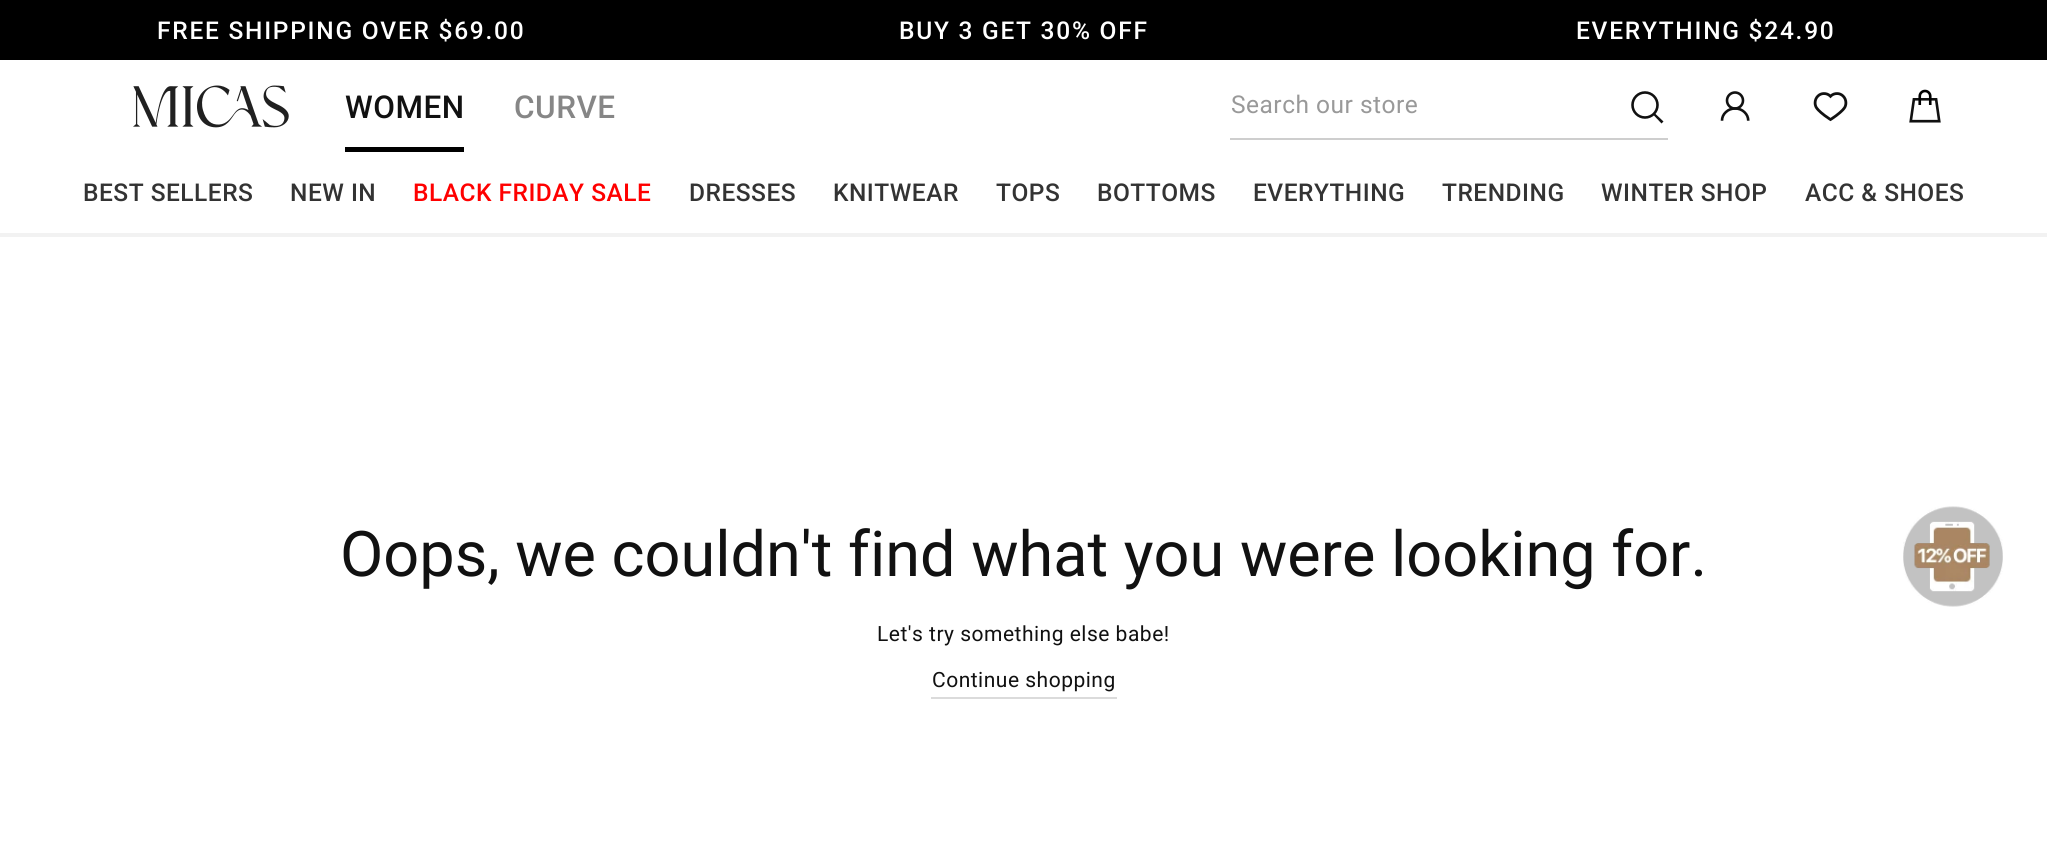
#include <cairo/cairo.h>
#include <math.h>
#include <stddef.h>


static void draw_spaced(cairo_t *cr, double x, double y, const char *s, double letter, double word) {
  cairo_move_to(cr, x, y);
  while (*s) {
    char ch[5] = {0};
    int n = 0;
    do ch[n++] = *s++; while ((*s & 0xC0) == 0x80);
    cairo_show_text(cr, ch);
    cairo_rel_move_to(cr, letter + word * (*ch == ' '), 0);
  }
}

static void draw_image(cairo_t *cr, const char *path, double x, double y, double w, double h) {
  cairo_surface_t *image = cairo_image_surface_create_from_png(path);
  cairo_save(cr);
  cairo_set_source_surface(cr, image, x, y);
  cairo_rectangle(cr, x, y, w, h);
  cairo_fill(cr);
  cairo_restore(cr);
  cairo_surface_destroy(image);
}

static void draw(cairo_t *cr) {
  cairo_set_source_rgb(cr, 1, 1, 1);
  cairo_paint(cr);
  cairo_set_source_rgb(cr, 0, 0, 0);
  cairo_rectangle(cr, 0, 0, 2047, 60);
  cairo_fill(cr);
  draw_image(cr, "images/1.png", 133, 85, 156, 43);
  cairo_rectangle(cr, 345, 147, 119, 5);
  cairo_fill(cr);
  cairo_set_source_rgb(cr, 206 / 255.0, 206 / 255.0, 206 / 255.0);
  cairo_rectangle(cr, 1230, 138, 438, 2);
  cairo_fill(cr);
  cairo_arc(cr, 1645, 105, 12.5, 0, 2 * M_PI);
  cairo_set_source_rgb(cr, 17 / 255.0, 17 / 255.0, 17 / 255.0);
  cairo_set_line_width(cr, 2.6);
  cairo_stroke(cr);
  cairo_set_fill_rule(cr, CAIRO_FILL_RULE_EVEN_ODD);
  cairo_new_path(cr);
  cairo_move_to(cr, 1661.5, 123.5);
  cairo_line_to(cr, 1653, 114.5);
  cairo_line_to(cr, 1654.5, 113);
  cairo_line_to(cr, 1663.5, 121.5);
  cairo_close_path(cr);
  cairo_fill(cr);
  draw_image(cr, "images/2.png", 1720, 91, 30, 30);
  draw_image(cr, "images/3.png", 1813, 92, 35, 30);
  draw_image(cr, "images/4.png", 1909, 89, 32, 34);
  cairo_set_source_rgb(cr, 242 / 255.0, 242 / 255.0, 242 / 255.0);
  cairo_rectangle(cr, 0, 233, 2047, 4);
  cairo_fill(cr);
  cairo_set_source_rgb(cr, 219 / 255.0, 219 / 255.0, 219 / 255.0);
  cairo_rectangle(cr, 931, 697, 186, 2);
  cairo_fill(cr);
  draw_image(cr, "images/5.png", 1903, 506, 100, 101);
  cairo_select_font_face(cr, "Roboto Medium", CAIRO_FONT_SLANT_NORMAL, CAIRO_FONT_WEIGHT_NORMAL);
  cairo_set_font_size(cr, 24.5);
  cairo_set_source_rgb(cr, 1, 1, 1);
  draw_spaced(cr, 157, 39, "FREE SHIPPING OVER $69.00", 1.75, 0);
  draw_spaced(cr, 899, 39, "BUY 3 GET 30% OFF", 1.75, 0);
  draw_spaced(cr, 1576, 39, "EVERYTHING $24.90", 1.75, 0);
  cairo_set_font_size(cr, 31.5);
  cairo_set_source_rgb(cr, 17 / 255.0, 17 / 255.0, 17 / 255.0);
  draw_spaced(cr, 345, 118, "WOMEN", 0.5, 0);
  cairo_set_source_rgb(cr, 134 / 255.0, 134 / 255.0, 134 / 255.0);
  draw_spaced(cr, 514, 118, "CURVE", 0.5, 0);
  cairo_select_font_face(cr, "Roboto", CAIRO_FONT_SLANT_NORMAL, CAIRO_FONT_WEIGHT_NORMAL);
  cairo_set_font_size(cr, 24.5);
  cairo_set_source_rgb(cr, 153 / 255.0, 153 / 255.0, 153 / 255.0);
  draw_spaced(cr, 1231, 113, "Search our store", 0.5, 0);
  cairo_select_font_face(cr, "Roboto Medium", CAIRO_FONT_SLANT_NORMAL, CAIRO_FONT_WEIGHT_NORMAL);
  cairo_set_source_rgb(cr, 51 / 255.0, 51 / 255.0, 51 / 255.0);
  draw_spaced(cr, 83, 201, "BEST SELLERS", 0.5, 0);
  draw_spaced(cr, 290, 201, "NEW IN", 0.5, 0);
  cairo_set_source_rgb(cr, 1, 0, 0);
  draw_spaced(cr, 413, 201, "BLACK FRIDAY SALE", 0.5, 0);
  cairo_set_source_rgb(cr, 51 / 255.0, 51 / 255.0, 51 / 255.0);
  draw_spaced(cr, 689, 201, "DRESSES", 0.5, 0);
  draw_spaced(cr, 833, 201, "KNITWEAR", 0.5, 0);
  draw_spaced(cr, 996, 201, "TOPS", 0.5, 0);
  draw_spaced(cr, 1097, 201, "BOTTOMS", 0.5, 0);
  draw_spaced(cr, 1253, 201, "EVERYTHING", 0.5, 0);
  draw_spaced(cr, 1442, 201, "TRENDING", 0.5, 0);
  draw_spaced(cr, 1601, 201, "WINTER SHOP", 0.5, 0);
  draw_spaced(cr, 1805, 201, "ACC & SHOES", 0.5, 0);
  cairo_select_font_face(cr, "Roboto", CAIRO_FONT_SLANT_NORMAL, CAIRO_FONT_WEIGHT_NORMAL);
  cairo_set_font_size(cr, 63);
  cairo_set_source_rgb(cr, 17 / 255.0, 17 / 255.0, 17 / 255.0);
  cairo_move_to(cr, 340, 576);
  cairo_show_text(cr, "Oops, we couldn't find what you were looking for.");
  cairo_set_font_size(cr, 21);
  draw_spaced(cr, 877, 641, "Let's try something else babe!", 0.5, 0);
  draw_spaced(cr, 932, 687, "Continue shopping", 0.5, 0);
}

int main(void) {
  cairo_surface_t *surface = cairo_image_surface_create(CAIRO_FORMAT_RGB24, 2047, 859);
  cairo_t *cr = cairo_create(surface);
  cairo_font_options_t *options = cairo_font_options_create();
  cairo_font_options_set_hint_metrics(options, CAIRO_HINT_METRICS_OFF);
  cairo_font_options_set_hint_style(options, CAIRO_HINT_STYLE_NONE);
  cairo_set_font_options(cr, options);
  cairo_set_miter_limit(cr, 4);
  draw(cr);
  cairo_surface_write_to_png(surface, "out.png");
  cairo_font_options_destroy(options);
  cairo_destroy(cr);
  cairo_surface_destroy(surface);
  return 0;
}
